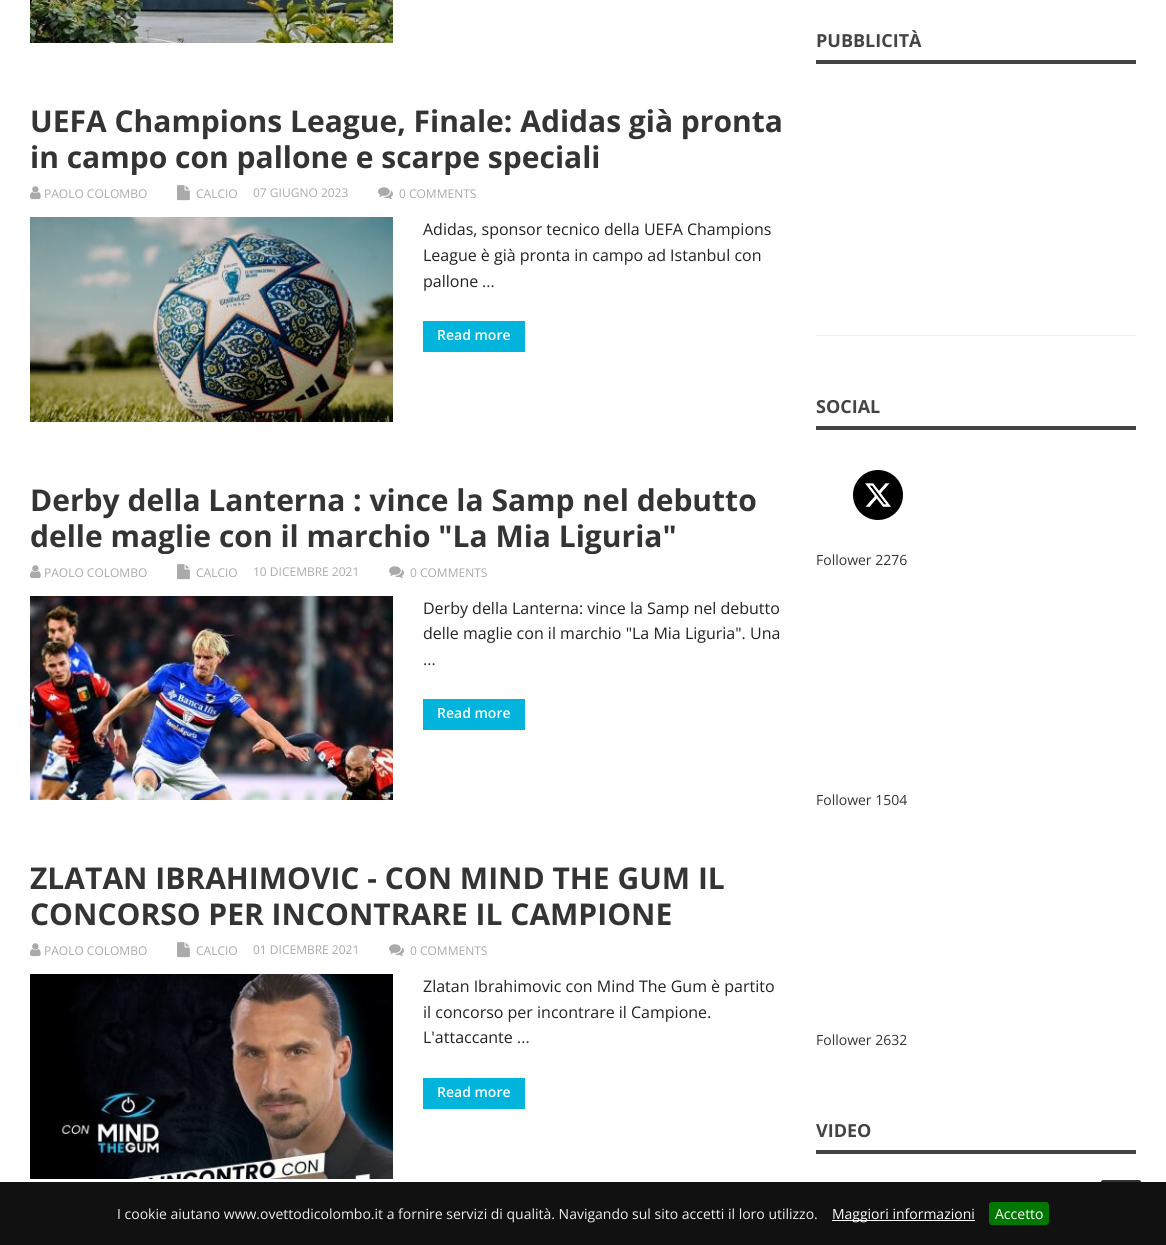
#include <cairo/cairo.h>
#include <math.h>
#include <stddef.h>


static void rounded_rect(cairo_t *cr, double x, double y, double w, double h, double r) {
  cairo_new_sub_path(cr);
  cairo_arc(cr, x + w - r, y + h - r, r, 0, M_PI / 2);
  cairo_arc(cr, x + r, y + h - r, r, M_PI / 2, M_PI);
  cairo_arc(cr, x + r, y + r, r, M_PI, 1.5 * M_PI);
  cairo_arc(cr, x + w - r, y + r, r, 1.5 * M_PI, 2 * M_PI);
  cairo_close_path(cr);
}

static void draw_image(cairo_t *cr, const char *path, double x, double y, double w, double h) {
  cairo_surface_t *image = cairo_image_surface_create_from_png(path);
  cairo_save(cr);
  cairo_set_source_surface(cr, image, x, y);
  cairo_rectangle(cr, x, y, w, h);
  cairo_fill(cr);
  cairo_restore(cr);
  cairo_surface_destroy(image);
}

static void draw(cairo_t *cr) {
  cairo_set_source_rgb(cr, 1, 1, 1);
  cairo_paint(cr);
  draw_image(cr, "images/1.png", 30, 0, 363, 43);
  draw_image(cr, "images/2.png", 30, 186, 11, 14);
  draw_image(cr, "images/3.png", 177, 185, 13, 16);
  draw_image(cr, "images/4.png", 378, 187, 15, 12);
  draw_image(cr, "images/5.png", 30, 217, 363, 205);
  cairo_set_source_rgb(cr, 0, 180 / 255.0, 220 / 255.0);
  cairo_rectangle(cr, 423, 321, 102, 31);
  cairo_fill(cr);
  draw_image(cr, "images/2.png", 30, 565, 11, 14);
  draw_image(cr, "images/3.png", 177, 564, 13, 16);
  draw_image(cr, "images/4.png", 389, 566, 15, 12);
  draw_image(cr, "images/6.png", 30, 596, 363, 204);
  cairo_rectangle(cr, 423, 699, 102, 31);
  cairo_fill(cr);
  draw_image(cr, "images/2.png", 30, 943, 11, 14);
  draw_image(cr, "images/3.png", 177, 942, 13, 16);
  draw_image(cr, "images/4.png", 389, 944, 15, 12);
  draw_image(cr, "images/7.png", 30, 974, 363, 205);
  cairo_rectangle(cr, 423, 1078, 102, 31);
  cairo_fill(cr);
  cairo_set_source_rgb(cr, 68 / 255.0, 68 / 255.0, 68 / 255.0);
  cairo_rectangle(cr, 816, 60, 320, 4);
  cairo_fill(cr);
  cairo_set_source_rgb(cr, 240 / 255.0, 240 / 255.0, 240 / 255.0);
  cairo_rectangle(cr, 816, 335, 320, 1);
  cairo_fill(cr);
  cairo_set_source_rgb(cr, 68 / 255.0, 68 / 255.0, 68 / 255.0);
  cairo_rectangle(cr, 816, 426, 320, 4);
  cairo_fill(cr);
  cairo_set_source_rgb(cr, 0, 0, 0);
  cairo_arc(cr, 878, 495, 25, 0, 2 * M_PI);
  cairo_fill(cr);
  draw_image(cr, "images/8.png", 865, 483, 26, 24);
  cairo_set_source_rgb(cr, 68 / 255.0, 68 / 255.0, 68 / 255.0);
  cairo_rectangle(cr, 816, 1150, 320, 4);
  cairo_fill(cr);
  cairo_set_source_rgb(cr, 51 / 255.0, 51 / 255.0, 51 / 255.0);
  rounded_rect(cr, 1101, 1180, 40, 40, 2);
  cairo_fill(cr);
  cairo_set_source_rgb(cr, 17 / 255.0, 17 / 255.0, 17 / 255.0);
  cairo_rectangle(cr, 0, 1182, 1166, 63);
  cairo_fill(cr);
  cairo_set_source_rgb(cr, 1, 1, 1);
  cairo_rectangle(cr, 832, 1220, 143, 1);
  cairo_fill(cr);
  cairo_set_source_rgb(cr, 0, 119 / 255.0, 0);
  rounded_rect(cr, 989, 1202, 60, 23, 3);
  cairo_fill(cr);
  cairo_select_font_face(cr, "Open Sans", CAIRO_FONT_SLANT_NORMAL, CAIRO_FONT_WEIGHT_BOLD);
  cairo_set_font_size(cr, 30);
  cairo_set_source_rgb(cr, 52 / 255.0, 52 / 255.0, 52 / 255.0);
  cairo_move_to(cr, 30, 132);
  cairo_show_text(cr, "UEFA Champions League, Finale: Adidas già pronta");
  cairo_save(cr);
  cairo_rectangle(cr, 30, 103, 756, 72);
  cairo_clip(cr);
  cairo_move_to(cr, 30, 168);
  cairo_show_text(cr, "in campo con pallone e scarpe speciali");
  cairo_restore(cr);
  cairo_select_font_face(cr, "Open Sans", CAIRO_FONT_SLANT_NORMAL, CAIRO_FONT_WEIGHT_NORMAL);
  cairo_set_font_size(cr, 12);
  cairo_set_source_rgb(cr, 170 / 255.0, 170 / 255.0, 170 / 255.0);
  cairo_move_to(cr, 44, 198);
  cairo_show_text(cr, "PAOLO COLOMBO");
  cairo_move_to(cr, 196, 198);
  cairo_show_text(cr, "CALCIO");
  cairo_move_to(cr, 253, 197);
  cairo_show_text(cr, "07 GIUGNO 2023");
  cairo_move_to(cr, 399, 198);
  cairo_show_text(cr, "0 COMMENTS");
  cairo_set_font_size(cr, 16);
  cairo_set_source_rgb(cr, 34 / 255.0, 34 / 255.0, 34 / 255.0);
  cairo_move_to(cr, 423, 235);
  cairo_show_text(cr, "Adidas, sponsor tecnico della UEFA Champions");
  cairo_move_to(cr, 423, 261);
  cairo_show_text(cr, "League è già pronta in campo ad Istanbul con");
  cairo_move_to(cr, 423, 287);
  cairo_show_text(cr, "pallone");
  cairo_set_source_rgb(cr, 52 / 255.0, 52 / 255.0, 52 / 255.0);
  cairo_move_to(cr, 482, 287);
  cairo_show_text(cr, "...");
  cairo_select_font_face(cr, "Open Sans SemiBold", CAIRO_FONT_SLANT_NORMAL, CAIRO_FONT_WEIGHT_NORMAL);
  cairo_set_font_size(cr, 14);
  cairo_set_source_rgb(cr, 1, 1, 1);
  cairo_move_to(cr, 437, 340);
  cairo_show_text(cr, "Read more");
  cairo_select_font_face(cr, "Open Sans", CAIRO_FONT_SLANT_NORMAL, CAIRO_FONT_WEIGHT_BOLD);
  cairo_set_font_size(cr, 30);
  cairo_set_source_rgb(cr, 52 / 255.0, 52 / 255.0, 52 / 255.0);
  cairo_move_to(cr, 30, 511);
  cairo_show_text(cr, "Derby della Lanterna : vince la Samp nel debutto");
  cairo_save(cr);
  cairo_rectangle(cr, 30, 482, 756, 72);
  cairo_clip(cr);
  cairo_move_to(cr, 30, 547);
  cairo_show_text(cr, "delle maglie con il marchio \"La Mia Liguria\"");
  cairo_restore(cr);
  cairo_select_font_face(cr, "Open Sans", CAIRO_FONT_SLANT_NORMAL, CAIRO_FONT_WEIGHT_NORMAL);
  cairo_set_font_size(cr, 12);
  cairo_set_source_rgb(cr, 170 / 255.0, 170 / 255.0, 170 / 255.0);
  cairo_move_to(cr, 44, 577);
  cairo_show_text(cr, "PAOLO COLOMBO");
  cairo_move_to(cr, 196, 577);
  cairo_show_text(cr, "CALCIO");
  cairo_move_to(cr, 253, 576);
  cairo_show_text(cr, "10 DICEMBRE 2021");
  cairo_move_to(cr, 410, 577);
  cairo_show_text(cr, "0 COMMENTS");
  cairo_set_font_size(cr, 16);
  cairo_set_source_rgb(cr, 34 / 255.0, 34 / 255.0, 34 / 255.0);
  cairo_move_to(cr, 423, 614);
  cairo_show_text(cr, "Derby della Lanterna: vince la Samp nel debutto");
  cairo_move_to(cr, 423, 639);
  cairo_show_text(cr, "delle maglie con il marchio \"La Mia Liguria\". Una");
  cairo_set_source_rgb(cr, 52 / 255.0, 52 / 255.0, 52 / 255.0);
  cairo_move_to(cr, 423, 665);
  cairo_show_text(cr, "...");
  cairo_select_font_face(cr, "Open Sans SemiBold", CAIRO_FONT_SLANT_NORMAL, CAIRO_FONT_WEIGHT_NORMAL);
  cairo_set_font_size(cr, 14);
  cairo_set_source_rgb(cr, 1, 1, 1);
  cairo_move_to(cr, 437, 718);
  cairo_show_text(cr, "Read more");
  cairo_select_font_face(cr, "Open Sans", CAIRO_FONT_SLANT_NORMAL, CAIRO_FONT_WEIGHT_BOLD);
  cairo_set_font_size(cr, 30);
  cairo_set_source_rgb(cr, 52 / 255.0, 52 / 255.0, 52 / 255.0);
  cairo_move_to(cr, 30, 889);
  cairo_show_text(cr, "ZLATAN IBRAHIMOVIC - CON MIND THE GUM IL");
  cairo_move_to(cr, 30, 925);
  cairo_show_text(cr, "CONCORSO PER INCONTRARE IL CAMPIONE");
  cairo_select_font_face(cr, "Open Sans", CAIRO_FONT_SLANT_NORMAL, CAIRO_FONT_WEIGHT_NORMAL);
  cairo_set_font_size(cr, 12);
  cairo_set_source_rgb(cr, 170 / 255.0, 170 / 255.0, 170 / 255.0);
  cairo_move_to(cr, 44, 955);
  cairo_show_text(cr, "PAOLO COLOMBO");
  cairo_move_to(cr, 196, 955);
  cairo_show_text(cr, "CALCIO");
  cairo_move_to(cr, 253, 954);
  cairo_show_text(cr, "01 DICEMBRE 2021");
  cairo_move_to(cr, 410, 955);
  cairo_show_text(cr, "0 COMMENTS");
  cairo_set_font_size(cr, 16);
  cairo_set_source_rgb(cr, 34 / 255.0, 34 / 255.0, 34 / 255.0);
  cairo_move_to(cr, 423, 992);
  cairo_show_text(cr, "Zlatan Ibrahimovic con Mind The Gum è partito");
  cairo_move_to(cr, 423, 1018);
  cairo_show_text(cr, "il concorso per incontrare il Campione.");
  cairo_move_to(cr, 423, 1043);
  cairo_show_text(cr, "L'attaccante");
  cairo_set_source_rgb(cr, 52 / 255.0, 52 / 255.0, 52 / 255.0);
  cairo_move_to(cr, 517, 1043);
  cairo_show_text(cr, "...");
  cairo_select_font_face(cr, "Open Sans SemiBold", CAIRO_FONT_SLANT_NORMAL, CAIRO_FONT_WEIGHT_NORMAL);
  cairo_set_font_size(cr, 14);
  cairo_set_source_rgb(cr, 1, 1, 1);
  cairo_move_to(cr, 437, 1097);
  cairo_show_text(cr, "Read more");
  cairo_select_font_face(cr, "Open Sans", CAIRO_FONT_SLANT_NORMAL, CAIRO_FONT_WEIGHT_BOLD);
  cairo_set_font_size(cr, 18);
  cairo_set_source_rgb(cr, 68 / 255.0, 68 / 255.0, 68 / 255.0);
  cairo_move_to(cr, 816, 47);
  cairo_show_text(cr, "PUBBLICITÀ");
  cairo_move_to(cr, 816, 413);
  cairo_show_text(cr, "SOCIAL");
  cairo_select_font_face(cr, "Open Sans", CAIRO_FONT_SLANT_NORMAL, CAIRO_FONT_WEIGHT_NORMAL);
  cairo_set_font_size(cr, 14);
  cairo_set_source_rgb(cr, 52 / 255.0, 52 / 255.0, 52 / 255.0);
  cairo_move_to(cr, 816, 565);
  cairo_show_text(cr, "Follower 2276");
  cairo_move_to(cr, 816, 805);
  cairo_show_text(cr, "Follower 1504");
  cairo_move_to(cr, 816, 1045);
  cairo_show_text(cr, "Follower 2632");
  cairo_select_font_face(cr, "Open Sans", CAIRO_FONT_SLANT_NORMAL, CAIRO_FONT_WEIGHT_BOLD);
  cairo_set_font_size(cr, 18);
  cairo_set_source_rgb(cr, 68 / 255.0, 68 / 255.0, 68 / 255.0);
  cairo_move_to(cr, 816, 1137);
  cairo_show_text(cr, "VIDEO");
  cairo_select_font_face(cr, "Open Sans", CAIRO_FONT_SLANT_NORMAL, CAIRO_FONT_WEIGHT_NORMAL);
  cairo_set_font_size(cr, 14);
  cairo_set_source_rgb(cr, 238 / 255.0, 238 / 255.0, 238 / 255.0);
  cairo_move_to(cr, 117, 1219);
  cairo_show_text(cr, "I cookie aiutano www.ovettodicolombo.it a fornire servizi di qualità. Navigando sul sito accetti il loro utilizzo.");
  cairo_set_source_rgb(cr, 1, 1, 1);
  cairo_move_to(cr, 832, 1219);
  cairo_show_text(cr, "Maggiori informazioni");
  cairo_move_to(cr, 995, 1219);
  cairo_show_text(cr, "Accetto");
}

int main(void) {
  cairo_surface_t *surface = cairo_image_surface_create(CAIRO_FORMAT_RGB24, 1166, 1245);
  cairo_t *cr = cairo_create(surface);
  cairo_font_options_t *options = cairo_font_options_create();
  cairo_font_options_set_hint_metrics(options, CAIRO_HINT_METRICS_OFF);
  cairo_font_options_set_hint_style(options, CAIRO_HINT_STYLE_NONE);
  cairo_set_font_options(cr, options);
  cairo_set_miter_limit(cr, 4);
  draw(cr);
  cairo_surface_write_to_png(surface, "out.png");
  cairo_font_options_destroy(options);
  cairo_destroy(cr);
  cairo_surface_destroy(surface);
  return 0;
}
